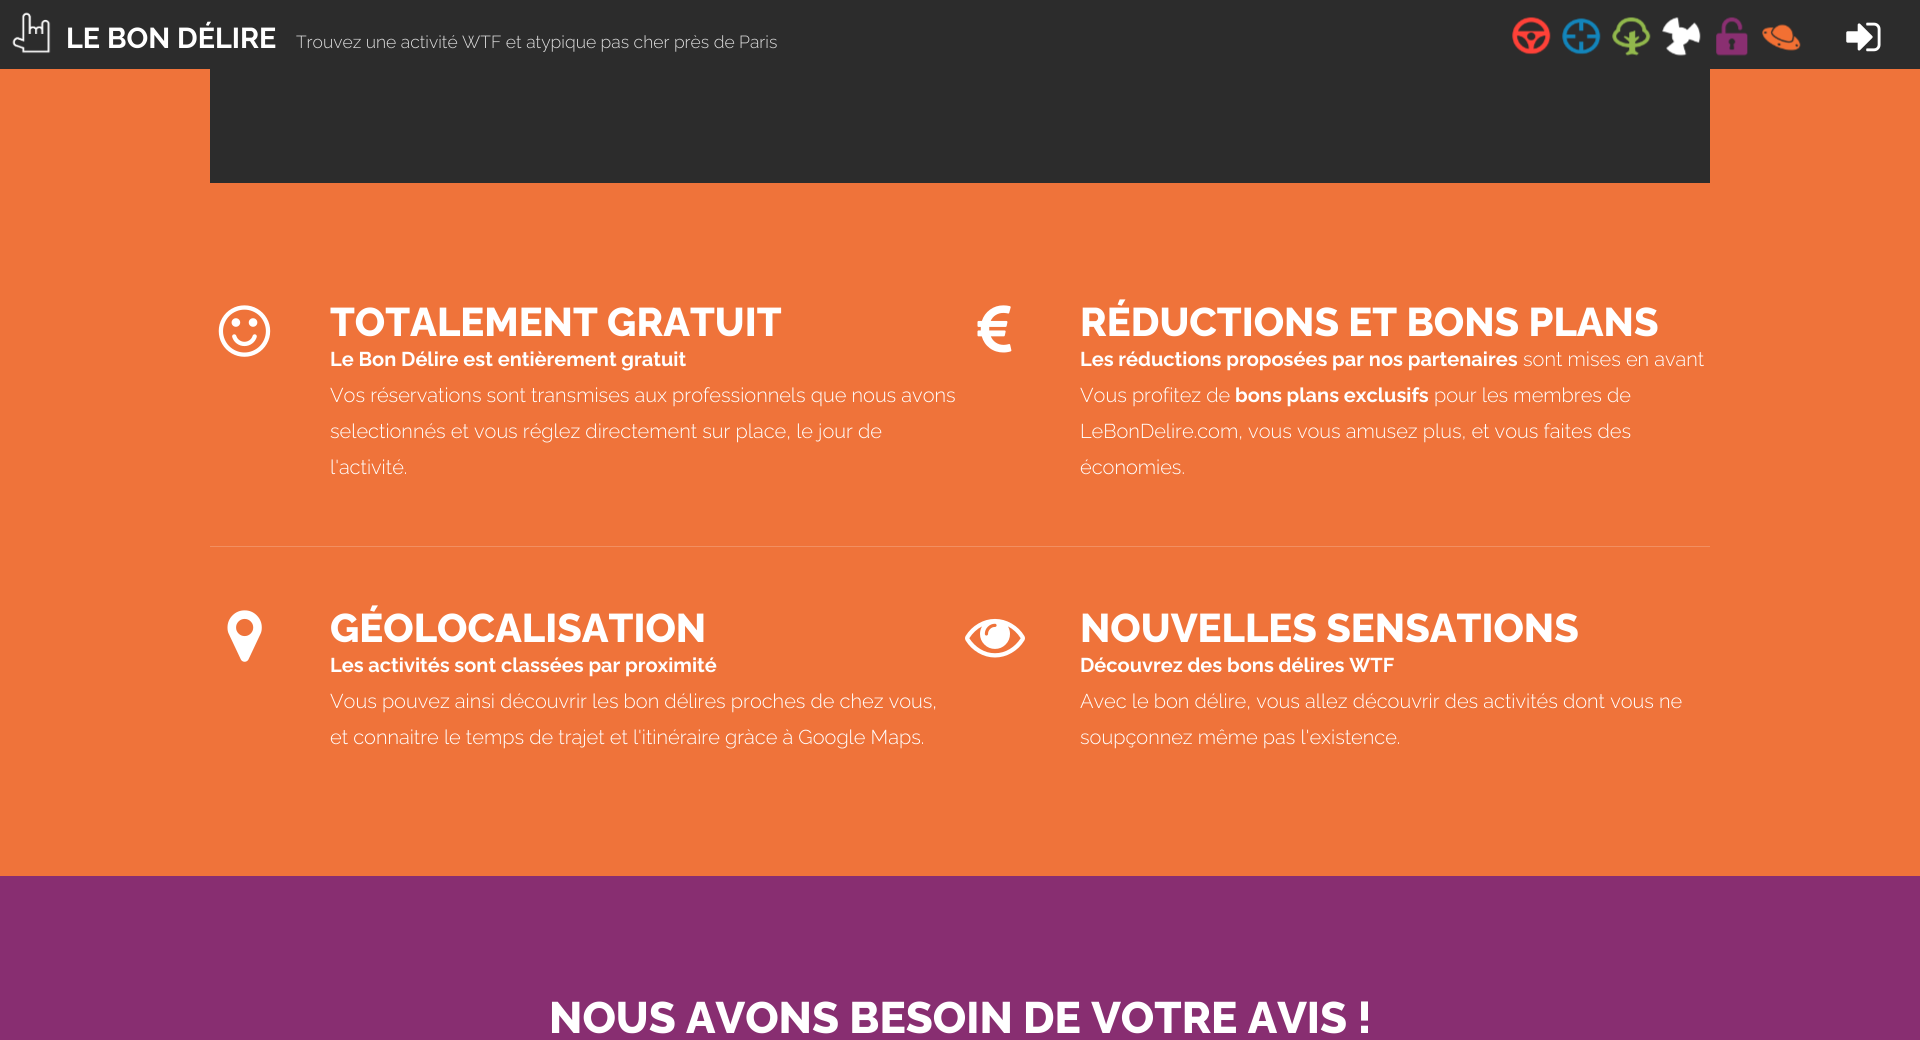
#include <cairo/cairo.h>
#include <math.h>
#include <stddef.h>


static void draw_image(cairo_t *cr, const char *path, double x, double y, double w, double h) {
  cairo_surface_t *image = cairo_image_surface_create_from_png(path);
  cairo_save(cr);
  cairo_set_source_surface(cr, image, x, y);
  cairo_rectangle(cr, x, y, w, h);
  cairo_fill(cr);
  cairo_restore(cr);
  cairo_surface_destroy(image);
}

static void draw(cairo_t *cr) {
  cairo_set_source_rgb(cr, 136 / 255.0, 46 / 255.0, 113 / 255.0);
  cairo_paint(cr);
  cairo_set_source_rgb(cr, 44 / 255.0, 44 / 255.0, 44 / 255.0);
  cairo_rectangle(cr, 0, 0, 1920, 69);
  cairo_fill(cr);
  draw_image(cr, "images/1.png", 12, 12, 39, 42);
  draw_image(cr, "images/2.png", 1512, 17, 39, 38);
  draw_image(cr, "images/3.png", 1562, 18, 39, 37);
  draw_image(cr, "images/4.png", 1612, 17, 39, 39);
  draw_image(cr, "images/5.png", 1662, 17, 39, 39);
  draw_image(cr, "images/6.png", 1716, 17, 32, 39);
  draw_image(cr, "images/7.png", 1762, 24, 39, 27);
  draw_image(cr, "images/8.png", 1846, 22, 35, 30);
  cairo_set_source_rgb(cr, 239 / 255.0, 115 / 255.0, 58 / 255.0);
  cairo_rectangle(cr, 0, 69, 1920, 807);
  cairo_fill(cr);
  cairo_set_source_rgb(cr, 44 / 255.0, 44 / 255.0, 44 / 255.0);
  cairo_rectangle(cr, 210, 69, 1500, 114);
  cairo_fill(cr);
  draw_image(cr, "images/9.png", 218, 305, 53, 52);
  cairo_set_source_rgb(cr, 242 / 255.0, 143 / 255.0, 97 / 255.0);
  cairo_rectangle(cr, 210, 546, 1500, 1);
  cairo_fill(cr);
  draw_image(cr, "images/10.png", 227, 610, 35, 52);
  draw_image(cr, "images/11.png", 977, 305, 35, 48);
  draw_image(cr, "images/12.png", 965, 618, 60, 40);
  cairo_select_font_face(cr, "Raleway", CAIRO_FONT_SLANT_NORMAL, CAIRO_FONT_WEIGHT_BOLD);
  cairo_set_font_size(cr, 28.75);
  cairo_set_source_rgb(cr, 1, 1, 1);
  cairo_move_to(cr, 66, 48);
  cairo_show_text(cr, "LE BON DÉLIRE");
  cairo_select_font_face(cr, "Raleway Light", CAIRO_FONT_SLANT_NORMAL, CAIRO_FONT_WEIGHT_NORMAL);
  cairo_set_font_size(cr, 17.5);
  cairo_set_source_rgb(cr, 221 / 255.0, 221 / 255.0, 221 / 255.0);
  cairo_move_to(cr, 296, 48);
  cairo_show_text(cr, "Trouvez une activité WTF et atypique pas cher près de Paris");
  cairo_select_font_face(cr, "Raleway ExtraBold", CAIRO_FONT_SLANT_NORMAL, CAIRO_FONT_WEIGHT_NORMAL);
  cairo_set_font_size(cr, 40);
  cairo_set_source_rgb(cr, 1, 1, 1);
  cairo_move_to(cr, 330, 336);
  cairo_show_text(cr, "TOTALEMENT GRATUIT");
  cairo_select_font_face(cr, "Raleway", CAIRO_FONT_SLANT_NORMAL, CAIRO_FONT_WEIGHT_BOLD);
  cairo_set_font_size(cr, 20);
  cairo_move_to(cr, 330, 366);
  cairo_show_text(cr, "Le Bon Délire est entièrement gratuit");
  cairo_select_font_face(cr, "Raleway Light", CAIRO_FONT_SLANT_NORMAL, CAIRO_FONT_WEIGHT_NORMAL);
  cairo_move_to(cr, 330, 402);
  cairo_show_text(cr, "Vos réservations sont transmises aux professionnels que nous avons");
  cairo_move_to(cr, 330, 438);
  cairo_show_text(cr, "selectionnés et vous réglez directement sur place, le jour de");
  cairo_move_to(cr, 330, 474);
  cairo_show_text(cr, "l'activité.");
  cairo_select_font_face(cr, "Raleway ExtraBold", CAIRO_FONT_SLANT_NORMAL, CAIRO_FONT_WEIGHT_NORMAL);
  cairo_set_font_size(cr, 40);
  cairo_move_to(cr, 330, 642);
  cairo_show_text(cr, "GÉOLOCALISATION");
  cairo_select_font_face(cr, "Raleway", CAIRO_FONT_SLANT_NORMAL, CAIRO_FONT_WEIGHT_BOLD);
  cairo_set_font_size(cr, 20);
  cairo_move_to(cr, 330, 672);
  cairo_show_text(cr, "Les activités sont classées par proximité");
  cairo_select_font_face(cr, "Raleway Light", CAIRO_FONT_SLANT_NORMAL, CAIRO_FONT_WEIGHT_NORMAL);
  cairo_move_to(cr, 330, 708);
  cairo_show_text(cr, "Vous pouvez ainsi découvrir les bon délires proches de chez vous,");
  cairo_move_to(cr, 330, 744);
  cairo_show_text(cr, "et connaitre le temps de trajet et l'itinéraire gràce à Google Maps.");
  cairo_select_font_face(cr, "Raleway ExtraBold", CAIRO_FONT_SLANT_NORMAL, CAIRO_FONT_WEIGHT_NORMAL);
  cairo_set_font_size(cr, 40);
  cairo_move_to(cr, 1080, 336);
  cairo_show_text(cr, "RÉDUCTIONS ET BONS PLANS");
  cairo_select_font_face(cr, "Raleway", CAIRO_FONT_SLANT_NORMAL, CAIRO_FONT_WEIGHT_BOLD);
  cairo_set_font_size(cr, 20);
  cairo_move_to(cr, 1080, 366);
  cairo_show_text(cr, "Les réductions proposées par nos partenaires");
  cairo_select_font_face(cr, "Raleway Light", CAIRO_FONT_SLANT_NORMAL, CAIRO_FONT_WEIGHT_NORMAL);
  cairo_move_to(cr, 1523, 366);
  cairo_show_text(cr, "sont mises en avant");
  cairo_move_to(cr, 1080, 402);
  cairo_show_text(cr, "Vous profitez de");
  cairo_select_font_face(cr, "Raleway", CAIRO_FONT_SLANT_NORMAL, CAIRO_FONT_WEIGHT_BOLD);
  cairo_move_to(cr, 1235, 402);
  cairo_show_text(cr, "bons plans exclusifs");
  cairo_select_font_face(cr, "Raleway Light", CAIRO_FONT_SLANT_NORMAL, CAIRO_FONT_WEIGHT_NORMAL);
  cairo_move_to(cr, 1434, 402);
  cairo_show_text(cr, "pour les membres de");
  cairo_move_to(cr, 1080, 438);
  cairo_show_text(cr, "LeBonDelire.com, vous vous amusez plus, et vous faites des");
  cairo_move_to(cr, 1080, 474);
  cairo_show_text(cr, "économies.");
  cairo_select_font_face(cr, "Raleway ExtraBold", CAIRO_FONT_SLANT_NORMAL, CAIRO_FONT_WEIGHT_NORMAL);
  cairo_set_font_size(cr, 40);
  cairo_move_to(cr, 1080, 642);
  cairo_show_text(cr, "NOUVELLES SENSATIONS");
  cairo_select_font_face(cr, "Raleway", CAIRO_FONT_SLANT_NORMAL, CAIRO_FONT_WEIGHT_BOLD);
  cairo_set_font_size(cr, 20);
  cairo_move_to(cr, 1080, 672);
  cairo_show_text(cr, "Découvrez des bons délires WTF");
  cairo_select_font_face(cr, "Raleway Light", CAIRO_FONT_SLANT_NORMAL, CAIRO_FONT_WEIGHT_NORMAL);
  cairo_move_to(cr, 1080, 708);
  cairo_show_text(cr, "Avec le bon délire, vous allez découvrir des activités dont vous ne");
  cairo_move_to(cr, 1080, 744);
  cairo_show_text(cr, "soupçonnez même pas l'existence.");
  cairo_select_font_face(cr, "Raleway ExtraBold", CAIRO_FONT_SLANT_NORMAL, CAIRO_FONT_WEIGHT_NORMAL);
  cairo_set_font_size(cr, 44);
  cairo_move_to(cr, 549, 1033);
  cairo_show_text(cr, "NOUS AVONS BESOIN DE VOTRE AVIS !");
}

int main(void) {
  cairo_surface_t *surface = cairo_image_surface_create(CAIRO_FORMAT_RGB24, 1920, 1040);
  cairo_t *cr = cairo_create(surface);
  cairo_font_options_t *options = cairo_font_options_create();
  cairo_font_options_set_hint_metrics(options, CAIRO_HINT_METRICS_OFF);
  cairo_font_options_set_hint_style(options, CAIRO_HINT_STYLE_NONE);
  cairo_set_font_options(cr, options);
  cairo_set_miter_limit(cr, 4);
  draw(cr);
  cairo_surface_write_to_png(surface, "out.png");
  cairo_font_options_destroy(options);
  cairo_destroy(cr);
  cairo_surface_destroy(surface);
  return 0;
}
